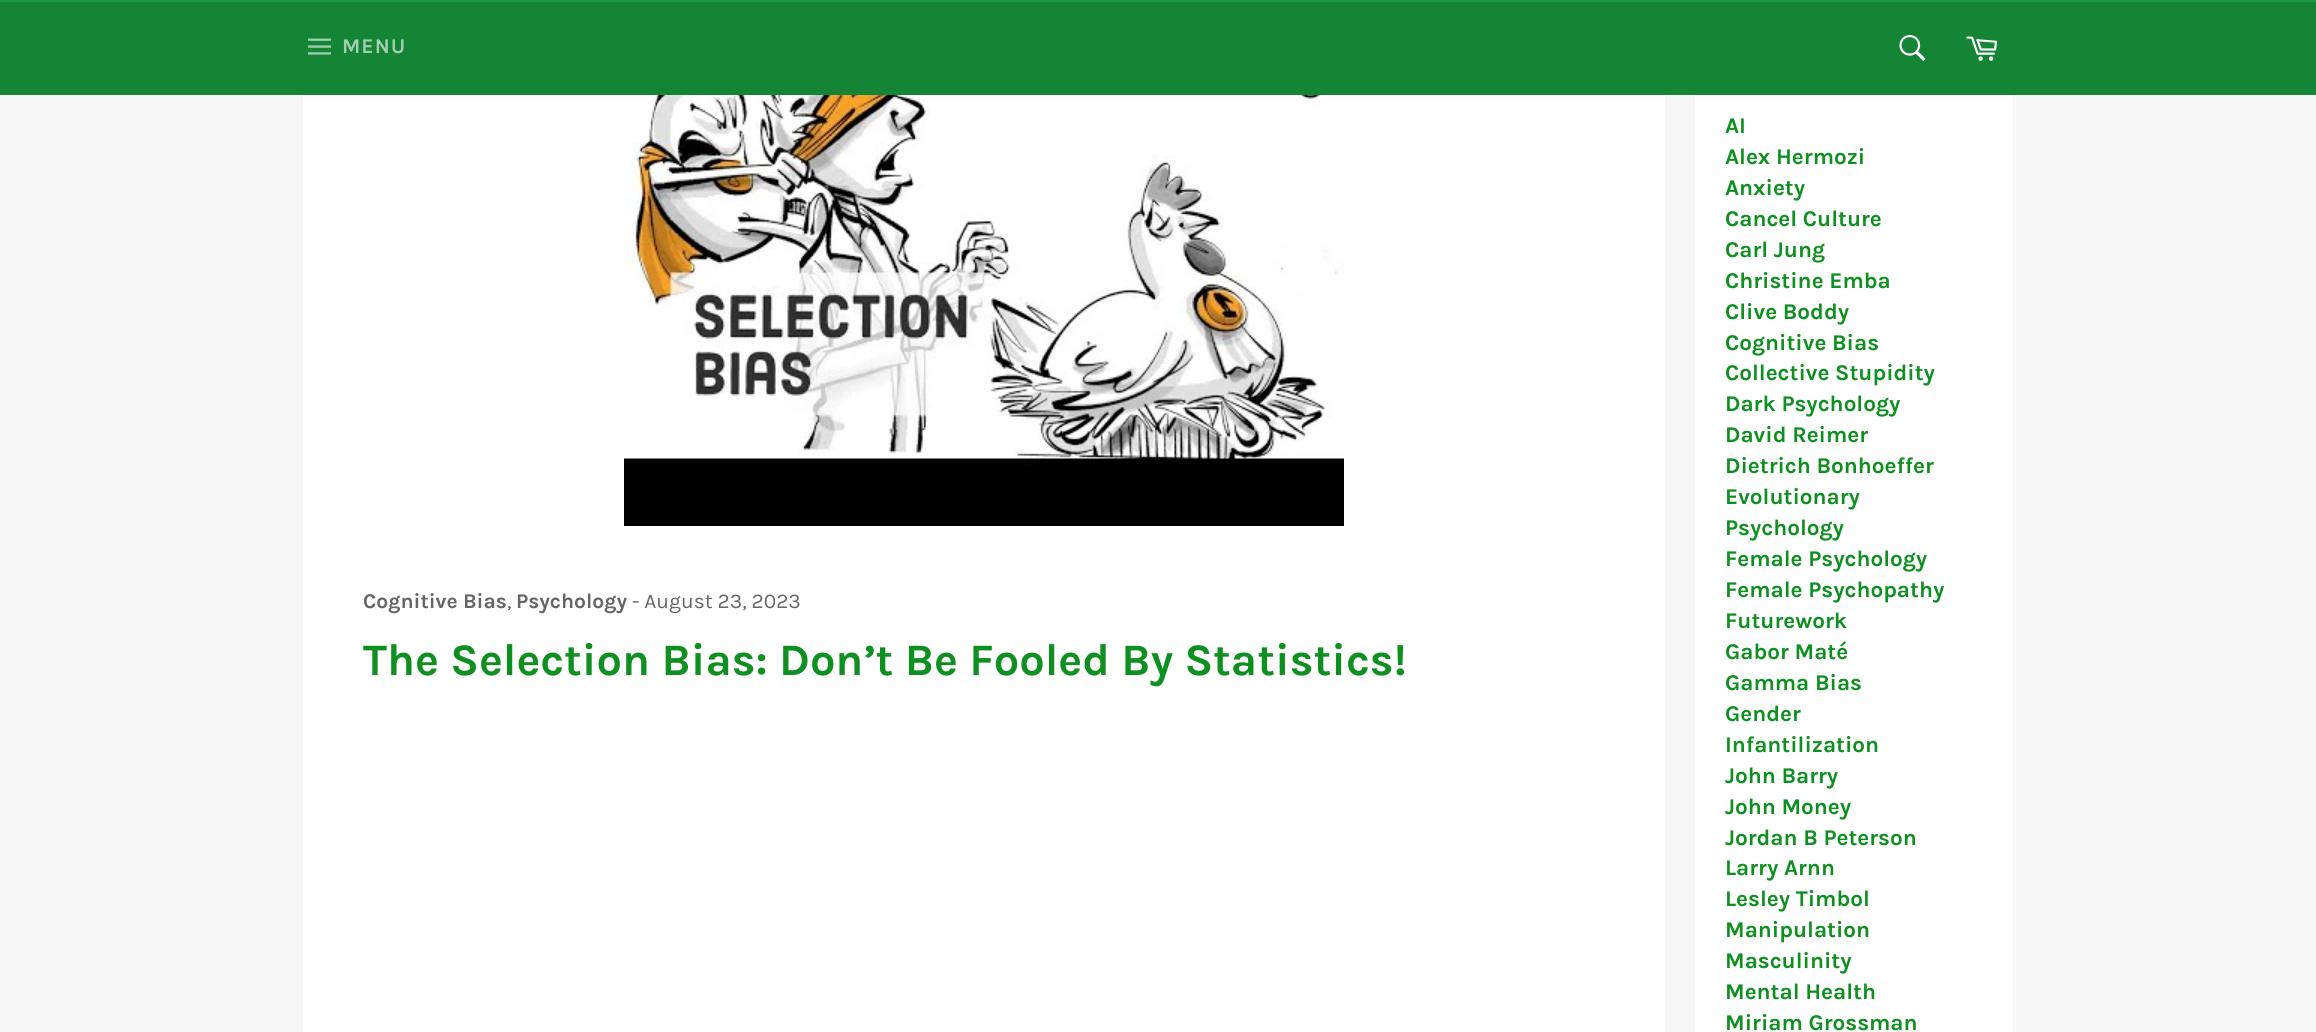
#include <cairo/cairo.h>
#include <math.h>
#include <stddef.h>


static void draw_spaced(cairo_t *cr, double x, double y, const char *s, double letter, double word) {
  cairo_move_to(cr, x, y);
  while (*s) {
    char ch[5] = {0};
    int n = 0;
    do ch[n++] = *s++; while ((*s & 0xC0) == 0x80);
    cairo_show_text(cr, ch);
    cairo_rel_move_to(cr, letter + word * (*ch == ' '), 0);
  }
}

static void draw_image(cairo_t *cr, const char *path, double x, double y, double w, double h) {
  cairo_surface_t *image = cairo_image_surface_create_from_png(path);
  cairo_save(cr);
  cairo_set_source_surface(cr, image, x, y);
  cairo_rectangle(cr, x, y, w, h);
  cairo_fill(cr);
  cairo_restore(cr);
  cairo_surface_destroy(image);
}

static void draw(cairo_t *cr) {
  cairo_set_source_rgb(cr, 247 / 255.0, 247 / 255.0, 247 / 255.0);
  cairo_paint(cr);
  cairo_set_source_rgb(cr, 20 / 255.0, 132 / 255.0, 53 / 255.0);
  cairo_rectangle(cr, 0, 2, 2316, 93);
  cairo_fill(cr);
  cairo_set_source_rgb(cr, 23 / 255.0, 154 / 255.0, 62 / 255.0);
  cairo_rectangle(cr, 0, 0, 2316, 2);
  cairo_fill(cr);
  draw_image(cr, "images/1.png", 308, 38, 23, 17);
  draw_image(cr, "images/2.png", 1899, 34, 27, 27);
  draw_image(cr, "images/3.png", 1966, 36, 31, 25);
  cairo_set_source_rgb(cr, 1, 1, 1);
  cairo_rectangle(cr, 303, 95, 1362, 937);
  cairo_fill(cr);
  draw_image(cr, "images/4.png", 624, 95, 720, 431);
  cairo_rectangle(cr, 1695, 95, 318, 937);
  cairo_fill(cr);
  cairo_select_font_face(cr, "Karla", CAIRO_FONT_SLANT_NORMAL, CAIRO_FONT_WEIGHT_BOLD);
  cairo_set_font_size(cr, 21);
  cairo_set_source_rgb(cr, 161 / 255.0, 206 / 255.0, 174 / 255.0);
  draw_spaced(cr, 342, 53, "MENU", 1, 0);
  cairo_set_source_rgb(cr, 102 / 255.0, 102 / 255.0, 102 / 255.0);
  cairo_move_to(cr, 363, 608);
  cairo_show_text(cr, "Cognitive Bias");
  cairo_select_font_face(cr, "Karla", CAIRO_FONT_SLANT_NORMAL, CAIRO_FONT_WEIGHT_NORMAL);
  cairo_move_to(cr, 507, 608);
  cairo_show_text(cr, ",");
  cairo_select_font_face(cr, "Karla", CAIRO_FONT_SLANT_NORMAL, CAIRO_FONT_WEIGHT_BOLD);
  cairo_move_to(cr, 516, 608);
  cairo_show_text(cr, "Psychology");
  cairo_select_font_face(cr, "Karla", CAIRO_FONT_SLANT_NORMAL, CAIRO_FONT_WEIGHT_NORMAL);
  cairo_move_to(cr, 632, 608);
  cairo_show_text(cr, "- August 23, 2023");
  cairo_select_font_face(cr, "Karla", CAIRO_FONT_SLANT_NORMAL, CAIRO_FONT_WEIGHT_BOLD);
  cairo_set_font_size(cr, 45);
  cairo_set_source_rgb(cr, 14 / 255.0, 144 / 255.0, 32 / 255.0);
  cairo_move_to(cr, 363, 675);
  cairo_show_text(cr, "The Selection Bias: Don’t Be Fooled By Statistics!");
  cairo_set_font_size(cr, 22.5);
  cairo_move_to(cr, 1725, 133);
  cairo_show_text(cr, "AI");
  cairo_move_to(cr, 1725, 164);
  cairo_show_text(cr, "Alex Hermozi");
  cairo_move_to(cr, 1725, 195);
  cairo_show_text(cr, "Anxiety");
  cairo_move_to(cr, 1725, 226);
  cairo_show_text(cr, "Cancel Culture");
  cairo_move_to(cr, 1725, 257);
  cairo_show_text(cr, "Carl Jung");
  cairo_move_to(cr, 1725, 288);
  cairo_show_text(cr, "Christine Emba");
  cairo_move_to(cr, 1725, 319);
  cairo_show_text(cr, "Clive Boddy");
  cairo_move_to(cr, 1725, 350);
  cairo_show_text(cr, "Cognitive Bias");
  cairo_move_to(cr, 1725, 380);
  cairo_show_text(cr, "Collective Stupidity");
  cairo_move_to(cr, 1725, 411);
  cairo_show_text(cr, "Dark Psychology");
  cairo_move_to(cr, 1725, 442);
  cairo_show_text(cr, "David Reimer");
  cairo_move_to(cr, 1725, 473);
  cairo_show_text(cr, "Dietrich Bonhoeffer");
  cairo_move_to(cr, 1725, 504);
  cairo_show_text(cr, "Evolutionary");
  cairo_move_to(cr, 1725, 535);
  cairo_show_text(cr, "Psychology");
  cairo_move_to(cr, 1725, 566);
  cairo_show_text(cr, "Female Psychology");
  cairo_move_to(cr, 1725, 597);
  cairo_show_text(cr, "Female Psychopathy");
  cairo_move_to(cr, 1725, 628);
  cairo_show_text(cr, "Futurework");
  cairo_move_to(cr, 1725, 659);
  cairo_show_text(cr, "Gabor Maté");
  cairo_move_to(cr, 1725, 690);
  cairo_show_text(cr, "Gamma Bias");
  cairo_move_to(cr, 1725, 721);
  cairo_show_text(cr, "Gender");
  cairo_move_to(cr, 1725, 752);
  cairo_show_text(cr, "Infantilization");
  cairo_move_to(cr, 1725, 783);
  cairo_show_text(cr, "John Barry");
  cairo_move_to(cr, 1725, 814);
  cairo_show_text(cr, "John Money");
  cairo_move_to(cr, 1725, 845);
  cairo_show_text(cr, "Jordan B Peterson");
  cairo_move_to(cr, 1725, 875);
  cairo_show_text(cr, "Larry Arnn");
  cairo_move_to(cr, 1725, 906);
  cairo_show_text(cr, "Lesley Timbol");
  cairo_move_to(cr, 1725, 937);
  cairo_show_text(cr, "Manipulation");
  cairo_move_to(cr, 1725, 968);
  cairo_show_text(cr, "Masculinity");
  cairo_move_to(cr, 1725, 999);
  cairo_show_text(cr, "Mental Health");
  cairo_move_to(cr, 1725, 1030);
  cairo_show_text(cr, "Miriam Grossman");
}

int main(void) {
  cairo_surface_t *surface = cairo_image_surface_create(CAIRO_FORMAT_RGB24, 2316, 1032);
  cairo_t *cr = cairo_create(surface);
  cairo_font_options_t *options = cairo_font_options_create();
  cairo_font_options_set_hint_metrics(options, CAIRO_HINT_METRICS_OFF);
  cairo_font_options_set_hint_style(options, CAIRO_HINT_STYLE_NONE);
  cairo_set_font_options(cr, options);
  cairo_set_miter_limit(cr, 4);
  draw(cr);
  cairo_surface_write_to_png(surface, "out.png");
  cairo_font_options_destroy(options);
  cairo_destroy(cr);
  cairo_surface_destroy(surface);
  return 0;
}
